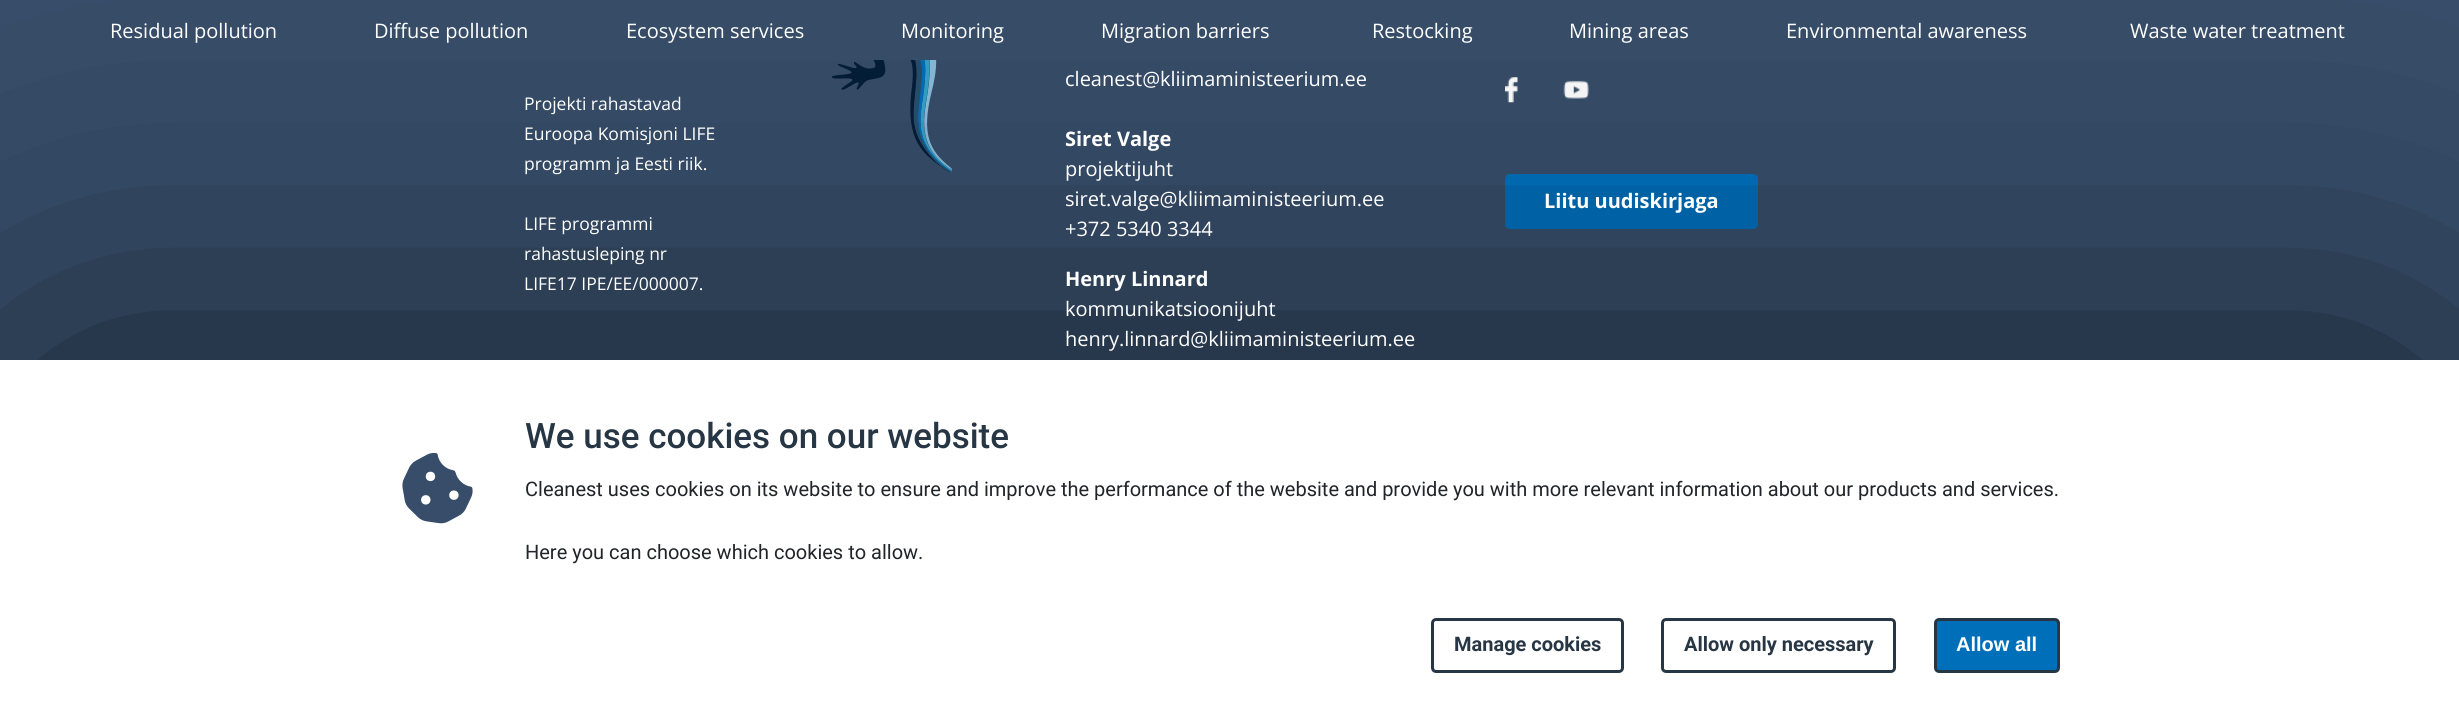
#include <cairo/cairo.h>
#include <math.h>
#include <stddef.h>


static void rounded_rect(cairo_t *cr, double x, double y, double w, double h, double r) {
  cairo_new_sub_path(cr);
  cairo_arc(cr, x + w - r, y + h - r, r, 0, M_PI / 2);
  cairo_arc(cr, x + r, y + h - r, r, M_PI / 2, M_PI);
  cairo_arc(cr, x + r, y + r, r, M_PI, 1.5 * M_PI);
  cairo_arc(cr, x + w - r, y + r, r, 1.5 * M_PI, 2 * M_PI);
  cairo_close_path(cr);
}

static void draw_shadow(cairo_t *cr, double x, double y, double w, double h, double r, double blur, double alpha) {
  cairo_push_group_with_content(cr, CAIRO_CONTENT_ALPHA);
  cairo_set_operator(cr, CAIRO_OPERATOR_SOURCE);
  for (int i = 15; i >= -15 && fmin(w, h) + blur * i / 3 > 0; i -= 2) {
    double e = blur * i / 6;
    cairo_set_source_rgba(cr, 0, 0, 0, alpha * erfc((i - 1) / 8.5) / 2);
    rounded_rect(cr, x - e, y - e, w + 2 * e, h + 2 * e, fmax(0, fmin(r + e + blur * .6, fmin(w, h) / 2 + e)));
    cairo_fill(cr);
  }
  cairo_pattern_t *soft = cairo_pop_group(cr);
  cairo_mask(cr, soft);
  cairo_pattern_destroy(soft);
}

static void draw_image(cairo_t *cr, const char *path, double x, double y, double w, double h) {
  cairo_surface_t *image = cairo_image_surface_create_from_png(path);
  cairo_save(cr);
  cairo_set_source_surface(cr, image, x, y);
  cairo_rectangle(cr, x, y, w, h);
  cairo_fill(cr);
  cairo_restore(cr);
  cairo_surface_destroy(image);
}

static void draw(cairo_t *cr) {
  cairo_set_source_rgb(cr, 55 / 255.0, 77 / 255.0, 105 / 255.0);
  cairo_paint(cr);
  draw_image(cr, "images/1.png", 831, 60, 121, 113);
  draw_image(cr, "images/2.png", 1505, 77, 13, 26);
  draw_image(cr, "images/3.png", 1563, 80, 26, 19);
  cairo_set_source_rgb(cr, 0, 111 / 255.0, 186 / 255.0);
  rounded_rect(cr, 1505.5, 174.5, 252, 54, 4.5);
  cairo_fill_preserve(cr);
  cairo_set_line_width(cr, 1);
  cairo_stroke(cr);
  cairo_set_source_rgb(cr, 0, 0, 0);
  draw_shadow(cr, 59, 404, 2342, 245, 0, 187.5, 0.75);
  cairo_set_source_rgb(cr, 1, 1, 1);
  cairo_rectangle(cr, 0, 360, 2459, 362);
  cairo_fill(cr);
  draw_image(cr, "images/4.png", 402, 452, 71, 72);
  rounded_rect(cr, 1432.5, 619.5, 190, 52, 3.5);
  cairo_set_source_rgb(cr, 39 / 255.0, 54 / 255.0, 69 / 255.0);
  cairo_set_line_width(cr, 3);
  cairo_stroke(cr);
  rounded_rect(cr, 1662.5, 619.5, 232, 52, 3.5);
  cairo_stroke(cr);
  cairo_set_source_rgb(cr, 0, 111 / 255.0, 186 / 255.0);
  rounded_rect(cr, 1935.5, 619.5, 123, 52, 3.5);
  cairo_fill_preserve(cr);
  cairo_set_source_rgb(cr, 39 / 255.0, 54 / 255.0, 69 / 255.0);
  cairo_stroke(cr);
  cairo_select_font_face(cr, "Open Sans", CAIRO_FONT_SLANT_NORMAL, CAIRO_FONT_WEIGHT_NORMAL);
  cairo_set_font_size(cr, 20);
  cairo_set_source_rgb(cr, 1, 1, 1);
  cairo_move_to(cr, 110, 38);
  cairo_show_text(cr, "Residual pollution");
  cairo_move_to(cr, 374, 38);
  cairo_show_text(cr, "Diffuse pollution");
  cairo_move_to(cr, 626, 38);
  cairo_show_text(cr, "Ecosystem services");
  cairo_move_to(cr, 901, 38);
  cairo_show_text(cr, "Monitoring");
  cairo_move_to(cr, 1101, 38);
  cairo_show_text(cr, "Migration barriers");
  cairo_move_to(cr, 1372, 38);
  cairo_show_text(cr, "Restocking");
  cairo_move_to(cr, 1569, 38);
  cairo_show_text(cr, "Mining areas");
  cairo_move_to(cr, 1786, 38);
  cairo_show_text(cr, "Environmental awareness");
  cairo_move_to(cr, 2130, 38);
  cairo_show_text(cr, "Waste water treatment");
  cairo_set_font_size(cr, 17.5);
  cairo_move_to(cr, 524, 110);
  cairo_show_text(cr, "Projekti rahastavad");
  cairo_move_to(cr, 524, 140);
  cairo_show_text(cr, "Euroopa Komisjoni LIFE");
  cairo_move_to(cr, 524, 170);
  cairo_show_text(cr, "programm ja Eesti riik.");
  cairo_move_to(cr, 524, 230);
  cairo_show_text(cr, "LIFE programmi");
  cairo_move_to(cr, 524, 260);
  cairo_show_text(cr, "rahastusleping nr");
  cairo_move_to(cr, 524, 290);
  cairo_show_text(cr, "LIFE17 IPE/EE/000007.");
  cairo_set_font_size(cr, 20);
  cairo_move_to(cr, 1065, 86);
  cairo_show_text(cr, "cleanest@kliimaministeerium.ee");
  cairo_select_font_face(cr, "Open Sans", CAIRO_FONT_SLANT_NORMAL, CAIRO_FONT_WEIGHT_BOLD);
  cairo_move_to(cr, 1065, 146);
  cairo_show_text(cr, "Siret Valge");
  cairo_select_font_face(cr, "Open Sans", CAIRO_FONT_SLANT_NORMAL, CAIRO_FONT_WEIGHT_NORMAL);
  cairo_move_to(cr, 1065, 176);
  cairo_show_text(cr, "projektijuht");
  cairo_move_to(cr, 1065, 206);
  cairo_show_text(cr, "siret.valge@kliimaministeerium.ee");
  cairo_move_to(cr, 1065, 236);
  cairo_show_text(cr, "+372 5340 3344");
  cairo_select_font_face(cr, "Open Sans", CAIRO_FONT_SLANT_NORMAL, CAIRO_FONT_WEIGHT_BOLD);
  cairo_move_to(cr, 1065, 286);
  cairo_show_text(cr, "Henry Linnard");
  cairo_select_font_face(cr, "Open Sans", CAIRO_FONT_SLANT_NORMAL, CAIRO_FONT_WEIGHT_NORMAL);
  cairo_move_to(cr, 1065, 316);
  cairo_show_text(cr, "kommunikatsioonijuht");
  cairo_move_to(cr, 1065, 346);
  cairo_show_text(cr, "henry.linnard@kliimaministeerium.ee");
  cairo_select_font_face(cr, "Open Sans", CAIRO_FONT_SLANT_NORMAL, CAIRO_FONT_WEIGHT_BOLD);
  cairo_move_to(cr, 1544, 208);
  cairo_show_text(cr, "Liitu uudiskirjaga");
  cairo_select_font_face(cr, "Roboto Medium", CAIRO_FONT_SLANT_NORMAL, CAIRO_FONT_WEIGHT_NORMAL);
  cairo_set_font_size(cr, 35);
  cairo_set_source_rgb(cr, 39 / 255.0, 54 / 255.0, 69 / 255.0);
  cairo_move_to(cr, 525, 448);
  cairo_show_text(cr, "We use cookies on our website");
  cairo_select_font_face(cr, "Roboto", CAIRO_FONT_SLANT_NORMAL, CAIRO_FONT_WEIGHT_NORMAL);
  cairo_set_font_size(cr, 20);
  cairo_set_source_rgb(cr, 33 / 255.0, 37 / 255.0, 41 / 255.0);
  cairo_move_to(cr, 525, 496);
  cairo_show_text(cr, "Cleanest uses cookies on its website to ensure and improve the performance of the website and provide you with more relevant information about our products and services.");
  cairo_move_to(cr, 525, 559);
  cairo_show_text(cr, "Here you can choose which cookies to allow.");
  cairo_select_font_face(cr, "Roboto", CAIRO_FONT_SLANT_NORMAL, CAIRO_FONT_WEIGHT_BOLD);
  cairo_set_source_rgb(cr, 39 / 255.0, 54 / 255.0, 69 / 255.0);
  cairo_move_to(cr, 1454, 651);
  cairo_show_text(cr, "Manage cookies");
  cairo_move_to(cr, 1684, 651);
  cairo_show_text(cr, "Allow only necessary");
  cairo_select_font_face(cr, "Liberation Sans", CAIRO_FONT_SLANT_NORMAL, CAIRO_FONT_WEIGHT_BOLD);
  cairo_set_source_rgb(cr, 1, 1, 1);
  cairo_move_to(cr, 1956, 651);
  cairo_show_text(cr, "Allow all");
}

int main(void) {
  cairo_surface_t *surface = cairo_image_surface_create(CAIRO_FORMAT_RGB24, 2459, 722);
  cairo_t *cr = cairo_create(surface);
  cairo_font_options_t *options = cairo_font_options_create();
  cairo_font_options_set_hint_metrics(options, CAIRO_HINT_METRICS_OFF);
  cairo_font_options_set_hint_style(options, CAIRO_HINT_STYLE_NONE);
  cairo_set_font_options(cr, options);
  cairo_set_miter_limit(cr, 4);
  draw(cr);
  cairo_surface_write_to_png(surface, "out.png");
  cairo_font_options_destroy(options);
  cairo_destroy(cr);
  cairo_surface_destroy(surface);
  return 0;
}
